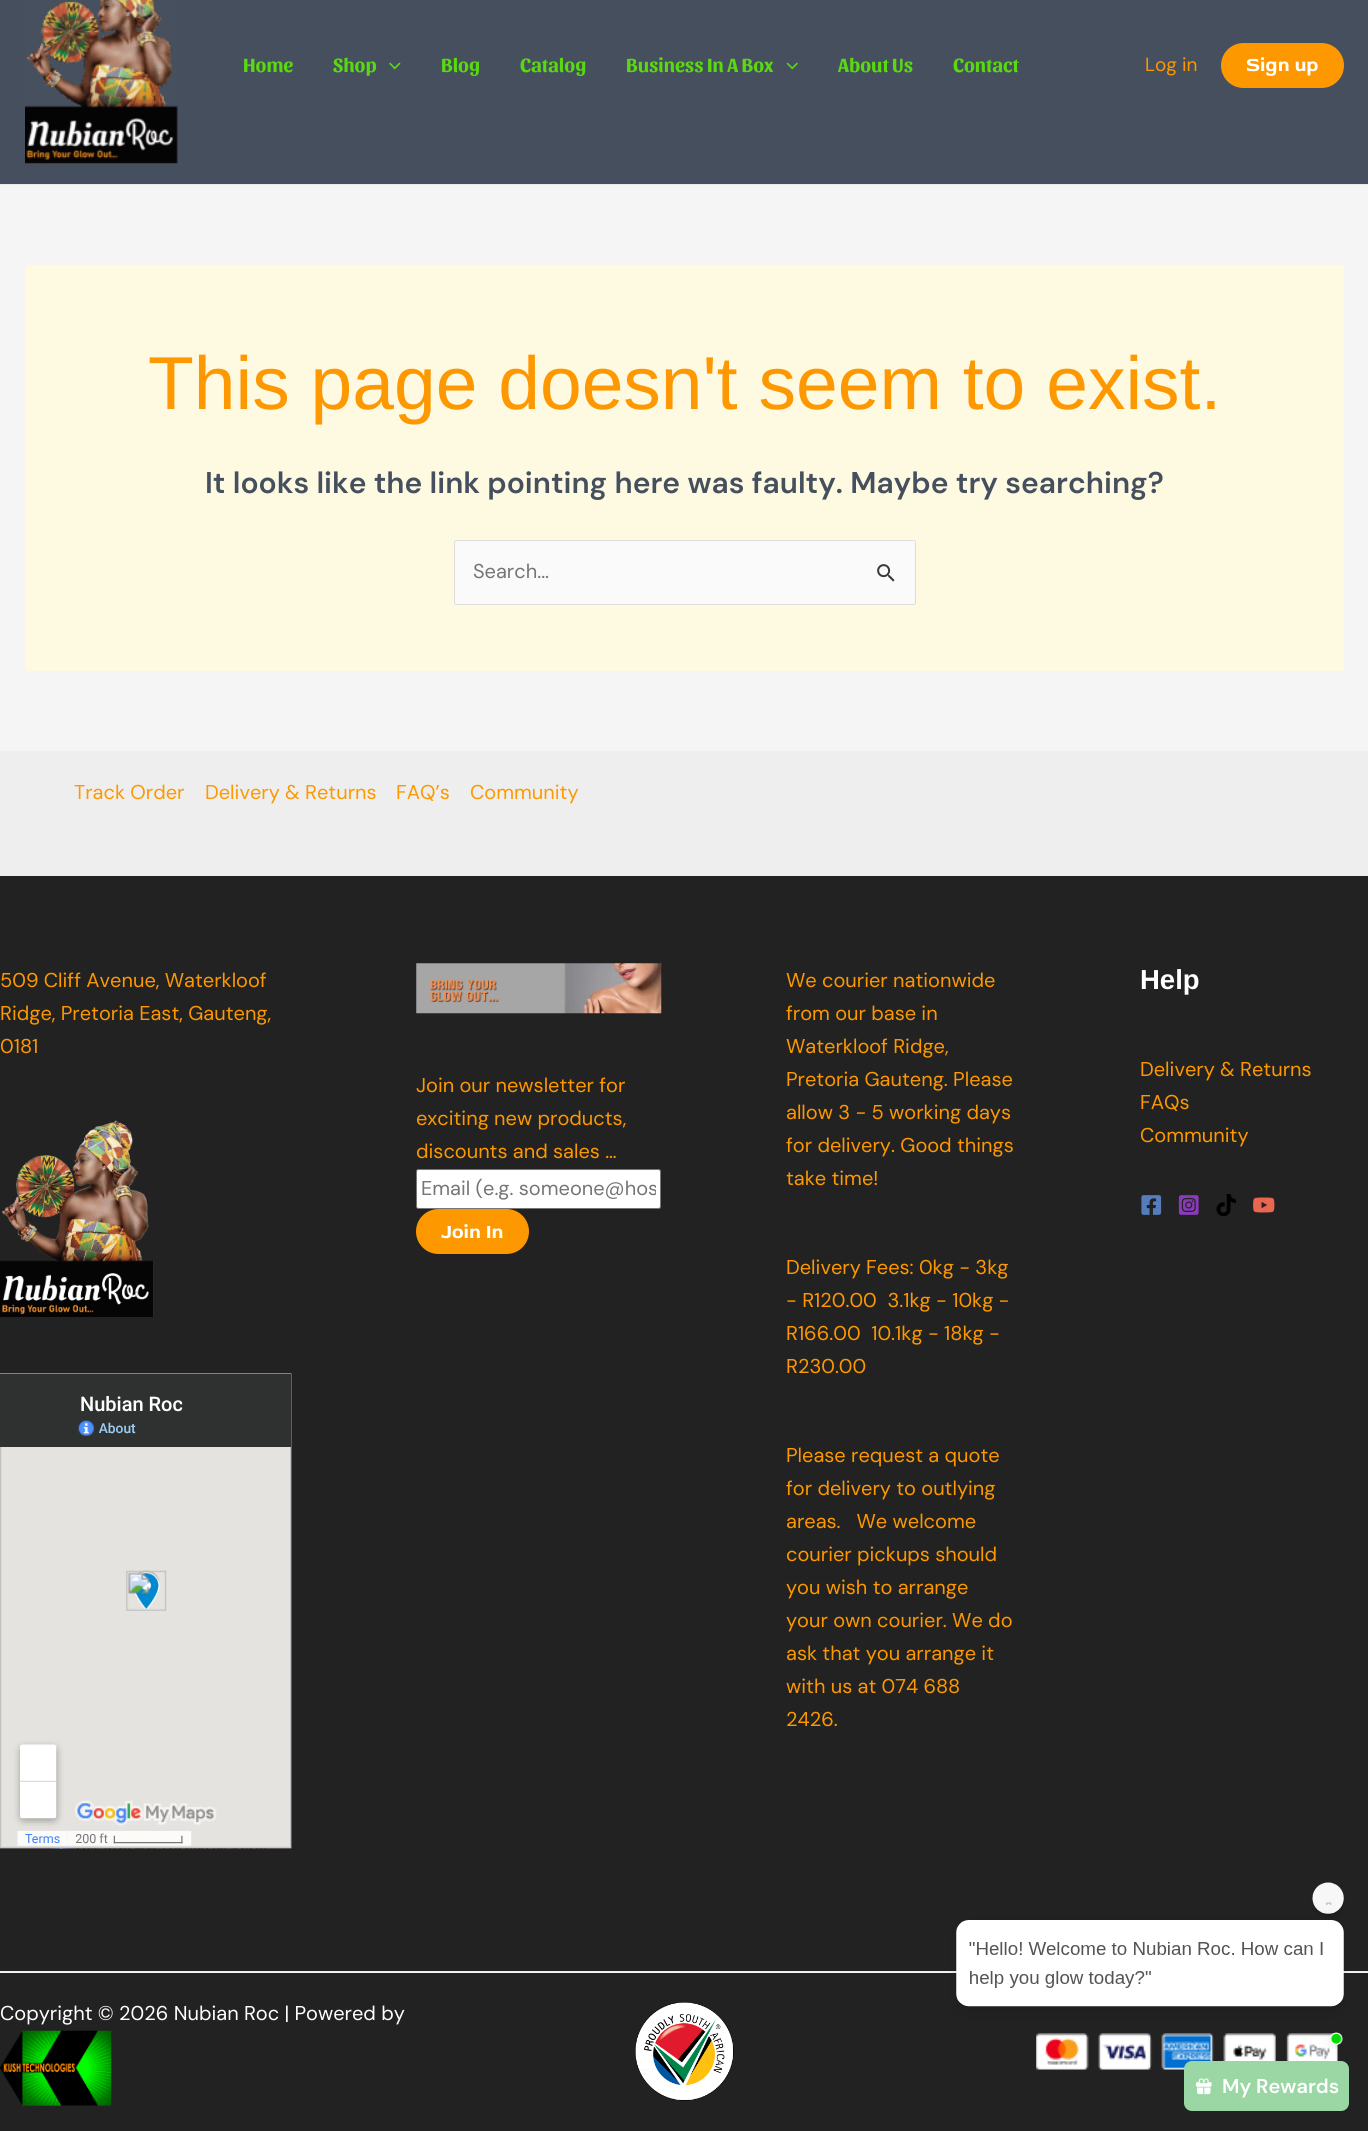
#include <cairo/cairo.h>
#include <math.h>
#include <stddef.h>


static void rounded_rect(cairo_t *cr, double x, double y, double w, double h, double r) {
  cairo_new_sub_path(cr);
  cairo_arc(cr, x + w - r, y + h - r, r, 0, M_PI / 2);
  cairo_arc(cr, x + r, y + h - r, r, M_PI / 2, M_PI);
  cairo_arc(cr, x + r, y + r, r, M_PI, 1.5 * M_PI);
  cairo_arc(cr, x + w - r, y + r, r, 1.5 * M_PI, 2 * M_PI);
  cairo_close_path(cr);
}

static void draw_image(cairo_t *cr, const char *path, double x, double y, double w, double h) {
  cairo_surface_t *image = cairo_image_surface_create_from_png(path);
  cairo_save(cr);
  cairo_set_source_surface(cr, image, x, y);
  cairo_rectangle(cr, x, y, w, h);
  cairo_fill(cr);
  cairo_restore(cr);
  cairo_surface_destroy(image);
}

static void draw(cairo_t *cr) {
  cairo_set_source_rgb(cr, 245 / 255.0, 245 / 255.0, 245 / 255.0);
  cairo_paint(cr);
  cairo_set_source_rgb(cr, 69 / 255.0, 79 / 255.0, 94 / 255.0);
  cairo_rectangle(cr, 0, 0, 1368, 184);
  cairo_fill(cr);
  cairo_set_source_rgb(cr, 234 / 255.0, 234 / 255.0, 234 / 255.0);
  cairo_rectangle(cr, 0, 184, 1368, 1);
  cairo_fill(cr);
  draw_image(cr, "images/1.png", 25, 0, 153, 164);
  draw_image(cr, "images/2.png", 389, 62, 12, 8);
  draw_image(cr, "images/3.png", 786, 62, 12, 8);
  cairo_set_source_rgb(cr, 253 / 255.0, 152 / 255.0, 0);
  rounded_rect(cr, 1221, 43, 123, 45, 22.5);
  cairo_fill(cr);
  cairo_set_source_rgb(cr, 254 / 255.0, 249 / 255.0, 225 / 255.0);
  cairo_rectangle(cr, 25, 265, 1319, 406);
  cairo_fill(cr);
  cairo_set_source_rgb(cr, 250 / 255.0, 250 / 255.0, 250 / 255.0);
  rounded_rect(cr, 454.5, 540.5, 461, 64, 2);
  cairo_fill_preserve(cr);
  cairo_set_source_rgb(cr, 221 / 255.0, 221 / 255.0, 221 / 255.0);
  cairo_set_line_width(cr, 1);
  cairo_stroke(cr);
  draw_image(cr, "images/4.png", 877, 564, 18, 18);
  cairo_set_source_rgb(cr, 238 / 255.0, 238 / 255.0, 238 / 255.0);
  cairo_rectangle(cr, 0, 751, 1368, 125);
  cairo_fill(cr);
  cairo_set_source_rgb(cr, 34 / 255.0, 34 / 255.0, 34 / 255.0);
  cairo_rectangle(cr, 0, 876, 1368, 1095);
  cairo_fill(cr);
  draw_image(cr, "images/5.png", 0, 1120, 154, 197);
  draw_image(cr, "images/6.png", 0, 1373, 292, 476);
  draw_image(cr, "images/7.png", 416, 963, 246, 51);
  cairo_set_source_rgb(cr, 1, 1, 1);
  rounded_rect(cr, 416.5, 1169.5, 244, 39, 2);
  cairo_fill_preserve(cr);
  cairo_set_source_rgb(cr, 118 / 255.0, 118 / 255.0, 118 / 255.0);
  cairo_stroke(cr);
  cairo_set_source_rgb(cr, 253 / 255.0, 152 / 255.0, 0);
  rounded_rect(cr, 416, 1209, 113, 45, 22.5);
  cairo_fill(cr);
  draw_image(cr, "images/8.png", 1141, 1195, 21, 20);
  draw_image(cr, "images/9.png", 1178, 1195, 21, 20);
  draw_image(cr, "images/10.png", 1216, 1194, 20, 22);
  draw_image(cr, "images/11.png", 1253, 1197, 22, 16);
  cairo_set_source_rgb(cr, 34 / 255.0, 34 / 255.0, 34 / 255.0);
  cairo_rectangle(cr, 0, 1973, 1368, 158);
  cairo_fill(cr);
  cairo_set_source_rgb(cr, 249 / 255.0, 240 / 255.0, 200 / 255.0);
  cairo_rectangle(cr, 0, 1971, 1368, 1);
  cairo_fill(cr);
  draw_image(cr, "images/12.png", 0, 2030, 112, 76);
  draw_image(cr, "images/13.png", 635, 2002, 99, 99);
  draw_image(cr, "images/14.png", 1036, 2033, 302, 37);
  draw_image(cr, "images/15.png", 950, 1882, 400, 167);
  cairo_set_source_rgb(cr, 154 / 255.0, 215 / 255.0, 164 / 255.0);
  rounded_rect(cr, 1184, 2061, 165, 50, 8);
  cairo_fill(cr);
  draw_image(cr, "images/16.png", 1195, 2078, 17, 17);
  cairo_select_font_face(cr, "Sansita", CAIRO_FONT_SLANT_NORMAL, CAIRO_FONT_WEIGHT_BOLD);
  cairo_set_font_size(cr, 20);
  cairo_set_source_rgb(cr, 89 / 255.0, 217 / 255.0, 15 / 255.0);
  cairo_move_to(cr, 243, 72);
  cairo_show_text(cr, "Home");
  cairo_move_to(cr, 333, 72);
  cairo_show_text(cr, "Shop");
  cairo_move_to(cr, 441, 72);
  cairo_show_text(cr, "Blog");
  cairo_move_to(cr, 520, 72);
  cairo_show_text(cr, "Catalog");
  cairo_move_to(cr, 626, 72);
  cairo_show_text(cr, "Business In A Box");
  cairo_move_to(cr, 838, 72);
  cairo_show_text(cr, "About Us");
  cairo_move_to(cr, 953, 72);
  cairo_show_text(cr, "Contact");
  cairo_select_font_face(cr, "DM Sans", CAIRO_FONT_SLANT_NORMAL, CAIRO_FONT_WEIGHT_NORMAL);
  cairo_set_font_size(cr, 19);
  cairo_set_source_rgb(cr, 253 / 255.0, 152 / 255.0, 0);
  cairo_move_to(cr, 1145, 71);
  cairo_show_text(cr, "Log in");
  cairo_select_font_face(cr, "Red Rose", CAIRO_FONT_SLANT_NORMAL, CAIRO_FONT_WEIGHT_BOLD);
  cairo_set_font_size(cr, 20);
  cairo_set_source_rgb(cr, 1, 1, 1);
  cairo_move_to(cr, 1246, 71);
  cairo_show_text(cr, "Sign up");
  cairo_select_font_face(cr, "Liberation Sans", CAIRO_FONT_SLANT_NORMAL, CAIRO_FONT_WEIGHT_NORMAL);
  cairo_set_font_size(cr, 75);
  cairo_set_source_rgb(cr, 253 / 255.0, 152 / 255.0, 0);
  cairo_move_to(cr, 148, 409);
  cairo_show_text(cr, "This page doesn't seem to exist.");
  cairo_select_font_face(cr, "DM Sans SemiBold", CAIRO_FONT_SLANT_NORMAL, CAIRO_FONT_WEIGHT_NORMAL);
  cairo_set_font_size(cr, 30);
  cairo_set_source_rgb(cr, 69 / 255.0, 79 / 255.0, 94 / 255.0);
  cairo_move_to(cr, 205, 493);
  cairo_show_text(cr, "It looks like the link pointing here was faulty. Maybe try searching?");
  cairo_select_font_face(cr, "DM Sans", CAIRO_FONT_SLANT_NORMAL, CAIRO_FONT_WEIGHT_NORMAL);
  cairo_set_font_size(cr, 20);
  cairo_set_source_rgb(cr, 117 / 255.0, 117 / 255.0, 117 / 255.0);
  cairo_move_to(cr, 473, 578);
  cairo_show_text(cr, "Search...");
  cairo_set_source_rgb(cr, 253 / 255.0, 152 / 255.0, 0);
  cairo_move_to(cr, 74, 799);
  cairo_show_text(cr, "Track Order");
  cairo_move_to(cr, 205, 799);
  cairo_show_text(cr, "Delivery & Returns");
  cairo_move_to(cr, 396, 799);
  cairo_show_text(cr, "FAQ’s");
  cairo_move_to(cr, 470, 799);
  cairo_show_text(cr, "Community");
  cairo_move_to(cr, 0, 987);
  cairo_show_text(cr, "509 Cliff Avenue, Waterkloof");
  cairo_move_to(cr, 0, 1020);
  cairo_show_text(cr, "Ridge, Pretoria East, Gauteng,");
  cairo_move_to(cr, 0, 1053);
  cairo_show_text(cr, "0181");
  cairo_move_to(cr, 416, 1092);
  cairo_show_text(cr, "Join our newsletter for");
  cairo_move_to(cr, 416, 1125);
  cairo_show_text(cr, "exciting new products,");
  cairo_move_to(cr, 416, 1158);
  cairo_show_text(cr, "discounts and sales …");
  cairo_save(cr);
  cairo_rectangle(cr, 421, 1175, 235, 26);
  cairo_clip(cr);
  cairo_set_source_rgb(cr, 117 / 255.0, 117 / 255.0, 117 / 255.0);
  cairo_move_to(cr, 421, 1195);
  cairo_show_text(cr, "Email (e.g. someone@hos");
  cairo_restore(cr);
  cairo_select_font_face(cr, "Red Rose", CAIRO_FONT_SLANT_NORMAL, CAIRO_FONT_WEIGHT_BOLD);
  cairo_set_source_rgb(cr, 1, 1, 1);
  cairo_move_to(cr, 441, 1238);
  cairo_show_text(cr, "Join In");
  cairo_select_font_face(cr, "DM Sans", CAIRO_FONT_SLANT_NORMAL, CAIRO_FONT_WEIGHT_NORMAL);
  cairo_set_source_rgb(cr, 253 / 255.0, 152 / 255.0, 0);
  cairo_move_to(cr, 786, 987);
  cairo_show_text(cr, "We courier nationwide");
  cairo_move_to(cr, 786, 1020);
  cairo_show_text(cr, "from our base in");
  cairo_move_to(cr, 786, 1053);
  cairo_show_text(cr, "Waterkloof Ridge,");
  cairo_move_to(cr, 786, 1086);
  cairo_show_text(cr, "Pretoria Gauteng. Please");
  cairo_move_to(cr, 786, 1119);
  cairo_show_text(cr, "allow 3 - 5 working days");
  cairo_move_to(cr, 786, 1152);
  cairo_show_text(cr, "for delivery. Good things");
  cairo_move_to(cr, 786, 1185);
  cairo_show_text(cr, "take time!");
  cairo_move_to(cr, 786, 1274);
  cairo_show_text(cr, "Delivery Fees: 0kg - 3kg");
  cairo_move_to(cr, 786, 1307);
  cairo_show_text(cr, "- R120.00  3.1kg - 10kg -");
  cairo_move_to(cr, 786, 1340);
  cairo_show_text(cr, "R166.00  10.1kg - 18kg -");
  cairo_move_to(cr, 786, 1373);
  cairo_show_text(cr, "R230.00");
  cairo_move_to(cr, 786, 1462);
  cairo_show_text(cr, "Please request a quote");
  cairo_move_to(cr, 786, 1495);
  cairo_show_text(cr, "for delivery to outlying");
  cairo_move_to(cr, 786, 1528);
  cairo_show_text(cr, "areas.   We welcome");
  cairo_move_to(cr, 786, 1561);
  cairo_show_text(cr, "courier pickups should");
  cairo_move_to(cr, 786, 1594);
  cairo_show_text(cr, "you wish to arrange");
  cairo_move_to(cr, 786, 1627);
  cairo_show_text(cr, "your own courier. We do");
  cairo_move_to(cr, 786, 1660);
  cairo_show_text(cr, "ask that you arrange it");
  cairo_move_to(cr, 786, 1693);
  cairo_show_text(cr, "with us at 074 688");
  cairo_move_to(cr, 786, 1726);
  cairo_show_text(cr, "2426.");
  cairo_select_font_face(cr, "Liberation Sans", CAIRO_FONT_SLANT_NORMAL, CAIRO_FONT_WEIGHT_BOLD);
  cairo_set_font_size(cr, 27.5);
  cairo_set_source_rgb(cr, 1, 1, 1);
  cairo_move_to(cr, 1140, 989);
  cairo_show_text(cr, "Help");
  cairo_select_font_face(cr, "DM Sans", CAIRO_FONT_SLANT_NORMAL, CAIRO_FONT_WEIGHT_NORMAL);
  cairo_set_font_size(cr, 20);
  cairo_set_source_rgb(cr, 253 / 255.0, 152 / 255.0, 0);
  cairo_move_to(cr, 1140, 1076);
  cairo_show_text(cr, "Delivery & Returns");
  cairo_move_to(cr, 1140, 1109);
  cairo_show_text(cr, "FAQs");
  cairo_move_to(cr, 1140, 1142);
  cairo_show_text(cr, "Community");
  cairo_set_source_rgb(cr, 1, 1, 1);
  cairo_move_to(cr, 0, 2020);
  cairo_show_text(cr, "Copyright © 2026 Nubian Roc | Powered by");
  cairo_select_font_face(cr, "DM Sans SemiBold", CAIRO_FONT_SLANT_NORMAL, CAIRO_FONT_WEIGHT_NORMAL);
  cairo_move_to(cr, 1222, 2093);
  cairo_show_text(cr, "My Rewards");
}

int main(void) {
  cairo_surface_t *surface = cairo_image_surface_create(CAIRO_FORMAT_RGB24, 1368, 2131);
  cairo_t *cr = cairo_create(surface);
  cairo_font_options_t *options = cairo_font_options_create();
  cairo_font_options_set_hint_metrics(options, CAIRO_HINT_METRICS_OFF);
  cairo_font_options_set_hint_style(options, CAIRO_HINT_STYLE_NONE);
  cairo_set_font_options(cr, options);
  cairo_set_miter_limit(cr, 4);
  draw(cr);
  cairo_surface_write_to_png(surface, "out.png");
  cairo_font_options_destroy(options);
  cairo_destroy(cr);
  cairo_surface_destroy(surface);
  return 0;
}
